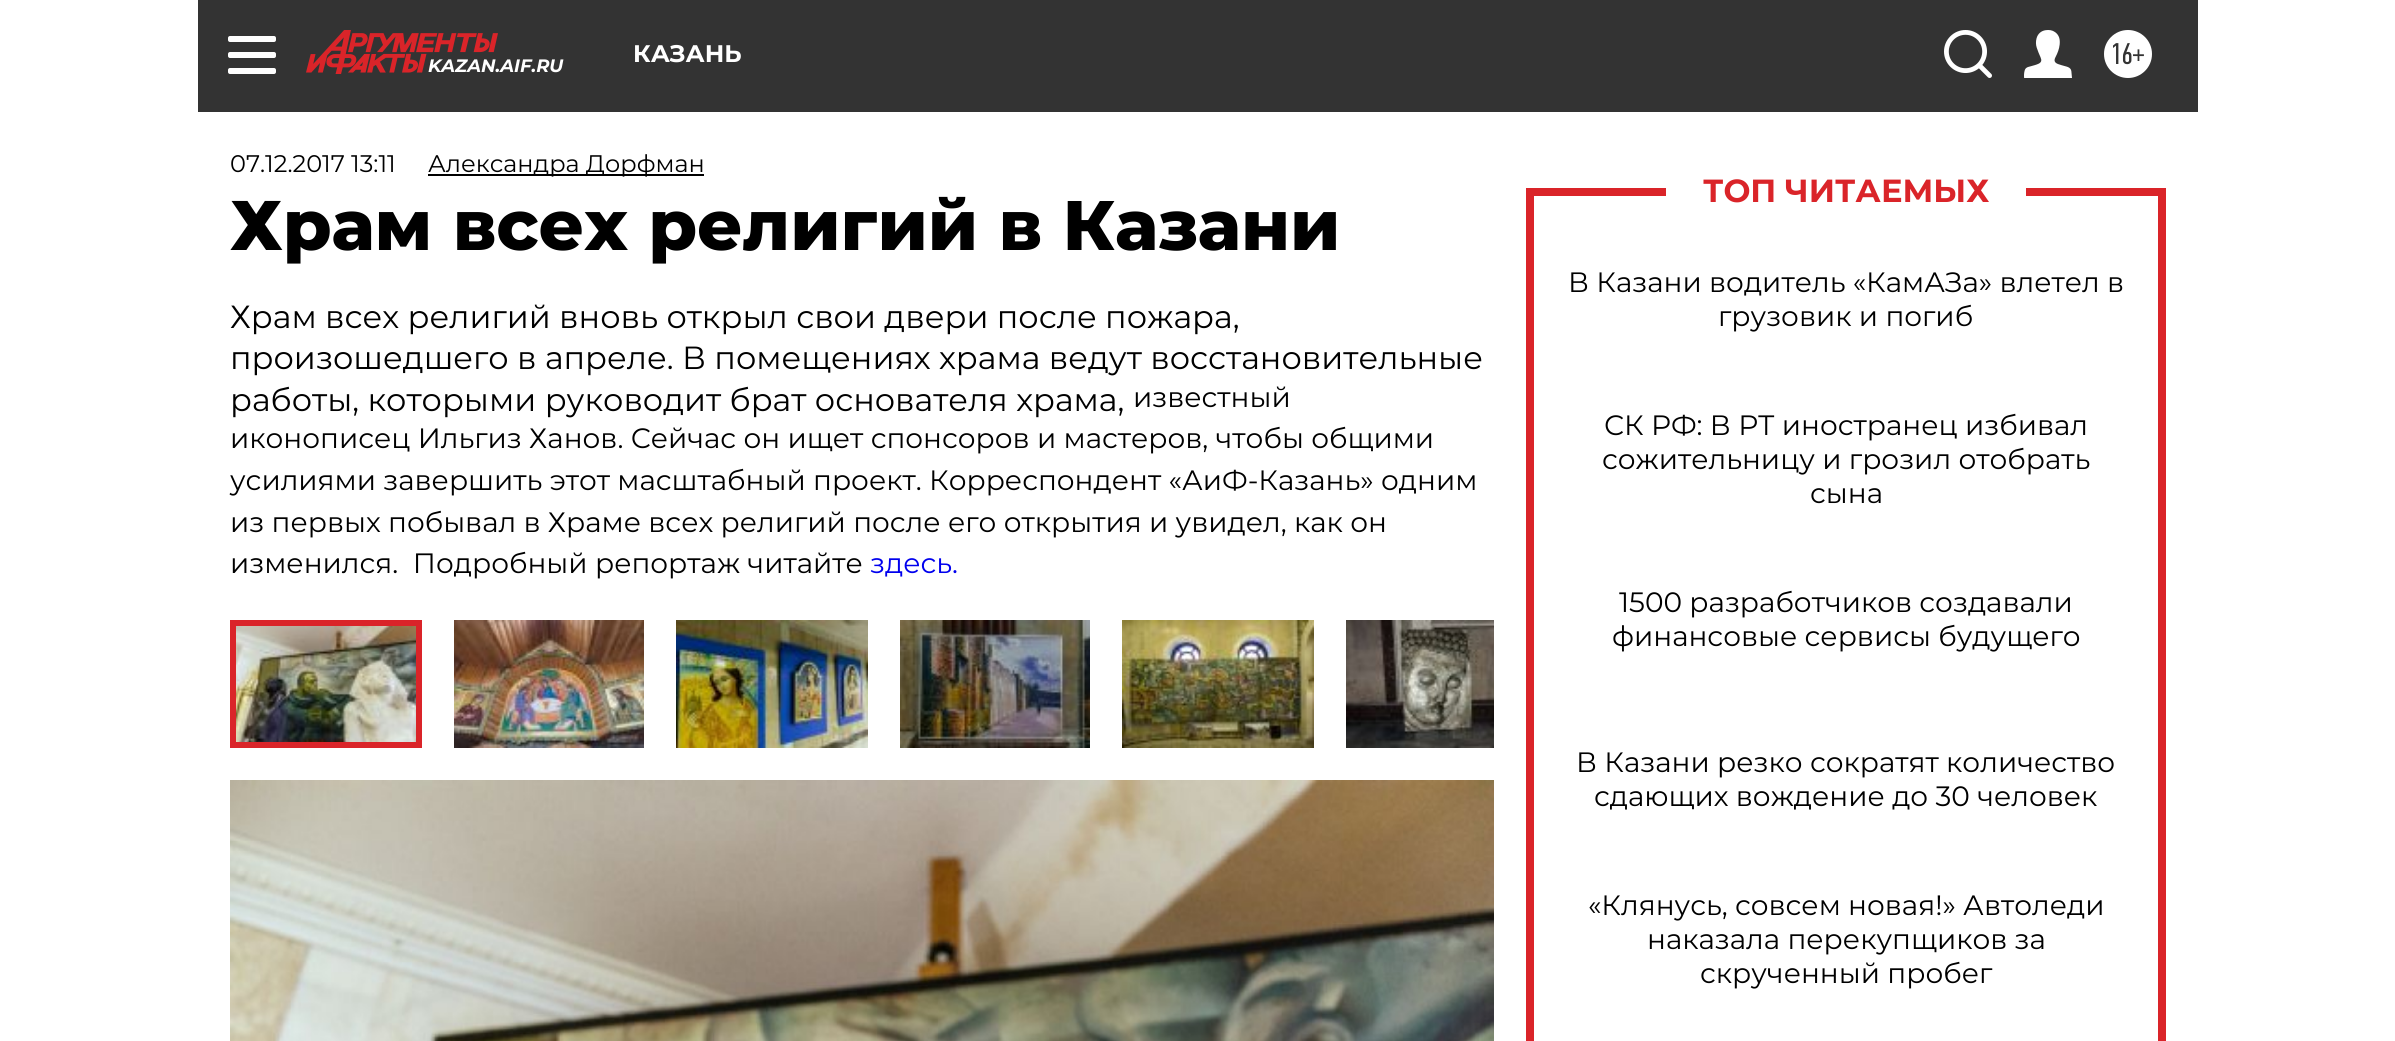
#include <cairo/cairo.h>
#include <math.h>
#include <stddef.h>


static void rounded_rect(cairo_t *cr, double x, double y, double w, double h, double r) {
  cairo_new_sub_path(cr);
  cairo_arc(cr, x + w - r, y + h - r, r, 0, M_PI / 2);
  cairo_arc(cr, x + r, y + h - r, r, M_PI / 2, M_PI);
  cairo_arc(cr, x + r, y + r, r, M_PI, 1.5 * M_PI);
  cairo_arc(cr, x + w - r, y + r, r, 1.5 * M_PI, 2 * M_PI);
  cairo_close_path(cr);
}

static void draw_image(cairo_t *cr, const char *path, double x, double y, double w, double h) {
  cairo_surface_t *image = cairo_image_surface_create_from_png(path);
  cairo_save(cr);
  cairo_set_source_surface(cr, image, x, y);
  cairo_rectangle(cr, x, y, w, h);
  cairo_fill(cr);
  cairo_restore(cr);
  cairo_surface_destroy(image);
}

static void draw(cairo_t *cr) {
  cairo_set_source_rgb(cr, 1, 1, 1);
  cairo_paint(cr);
  cairo_set_source_rgb(cr, 51 / 255.0, 51 / 255.0, 51 / 255.0);
  cairo_rectangle(cr, 198, 0, 2000, 112);
  cairo_fill(cr);
  cairo_set_source_rgb(cr, 1, 1, 1);
  rounded_rect(cr, 228, 36, 48, 6, 2);
  cairo_fill(cr);
  rounded_rect(cr, 228, 52, 48, 6, 2);
  cairo_fill(cr);
  rounded_rect(cr, 228, 68, 48, 6, 2);
  cairo_fill(cr);
  draw_image(cr, "images/1.png", 1944, 30, 48, 48);
  draw_image(cr, "images/2.png", 2024, 30, 48, 48);
  cairo_arc(cr, 2128, 54, 24, 0, 2 * M_PI);
  cairo_fill(cr);
  draw_image(cr, "images/3.png", 306, 30, 192, 44);
  cairo_set_source_rgb(cr, 0, 0, 0);
  cairo_rectangle(cr, 428, 174, 276, 2);
  cairo_fill(cr);
  draw_image(cr, "images/4.png", 236, 626, 180, 116);
  cairo_rectangle(cr, 233, 623, 186, 122);
  cairo_set_source_rgb(cr, 218 / 255.0, 36 / 255.0, 41 / 255.0);
  cairo_set_line_width(cr, 6);
  cairo_stroke(cr);
  draw_image(cr, "images/5.png", 454, 620, 190, 128);
  draw_image(cr, "images/6.png", 676, 620, 192, 128);
  draw_image(cr, "images/7.png", 900, 620, 190, 128);
  draw_image(cr, "images/8.png", 1122, 620, 192, 128);
  draw_image(cr, "images/9.png", 1346, 620, 148, 128);
  draw_image(cr, "images/10.png", 230, 780, 1264, 261);
  cairo_rectangle(cr, 1526, 188, 8, 853);
  cairo_fill(cr);
  cairo_rectangle(cr, 1526, 188, 140, 8);
  cairo_fill(cr);
  cairo_rectangle(cr, 2158, 188, 8, 853);
  cairo_fill(cr);
  cairo_rectangle(cr, 2026, 188, 140, 8);
  cairo_fill(cr);
  cairo_select_font_face(cr, "Montserrat", CAIRO_FONT_SLANT_NORMAL, CAIRO_FONT_WEIGHT_BOLD);
  cairo_set_font_size(cr, 24);
  cairo_set_source_rgb(cr, 1, 1, 1);
  cairo_move_to(cr, 633, 62);
  cairo_show_text(cr, "КАЗАНЬ");
  cairo_select_font_face(cr, "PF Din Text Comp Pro", CAIRO_FONT_SLANT_NORMAL, CAIRO_FONT_WEIGHT_NORMAL);
  cairo_set_font_size(cr, 30);
  cairo_set_source_rgb(cr, 51 / 255.0, 51 / 255.0, 51 / 255.0);
  cairo_move_to(cr, 2110, 64);
  cairo_show_text(cr, "16+");
  cairo_select_font_face(cr, "Montserrat", CAIRO_FONT_SLANT_ITALIC, CAIRO_FONT_WEIGHT_BOLD);
  cairo_set_font_size(cr, 18);
  cairo_set_source_rgb(cr, 1, 1, 1);
  cairo_move_to(cr, 428, 72);
  cairo_show_text(cr, "KAZAN.AIF.RU");
  cairo_select_font_face(cr, "Montserrat", CAIRO_FONT_SLANT_NORMAL, CAIRO_FONT_WEIGHT_NORMAL);
  cairo_set_font_size(cr, 24);
  cairo_set_source_rgb(cr, 0, 0, 0);
  cairo_move_to(cr, 230, 172);
  cairo_show_text(cr, "07.12.2017 13:11");
  cairo_move_to(cr, 428, 172);
  cairo_show_text(cr, "Александра Дорфман");
  cairo_select_font_face(cr, "Montserrat ExtraBold", CAIRO_FONT_SLANT_NORMAL, CAIRO_FONT_WEIGHT_NORMAL);
  cairo_set_font_size(cr, 70);
  cairo_move_to(cr, 230, 250);
  cairo_show_text(cr, "Храм всех религий в Казани");
  cairo_select_font_face(cr, "Montserrat", CAIRO_FONT_SLANT_NORMAL, CAIRO_FONT_WEIGHT_NORMAL);
  cairo_set_font_size(cr, 32);
  cairo_move_to(cr, 230, 328);
  cairo_show_text(cr, "Храм всех религий вновь открыл свои двери после пожара,");
  cairo_move_to(cr, 230, 369);
  cairo_show_text(cr, "произошедшего в апреле. В помещениях храма ведут восстановительные");
  cairo_move_to(cr, 230, 411);
  cairo_show_text(cr, "работы, которыми руководит брат основателя храма,");
  cairo_set_font_size(cr, 28);
  cairo_move_to(cr, 1133, 407);
  cairo_show_text(cr, "известный");
  cairo_move_to(cr, 230, 448);
  cairo_show_text(cr, "иконописец Ильгиз Ханов. Сейчас он ищет спонсоров и мастеров, чтобы общими");
  cairo_move_to(cr, 230, 490);
  cairo_show_text(cr, "усилиями завершить этот масштабный проект. Корреспондент «АиФ-Казань» одним");
  cairo_move_to(cr, 230, 532);
  cairo_show_text(cr, "из первых побывал в Храме всех религий после его открытия и увидел, как он");
  cairo_move_to(cr, 230, 573);
  cairo_show_text(cr, "изменился.  Подробный репортаж читайте");
  cairo_set_source_rgb(cr, 0, 0, 238 / 255.0);
  cairo_move_to(cr, 870, 573);
  cairo_show_text(cr, "здесь.");
  cairo_select_font_face(cr, "Montserrat", CAIRO_FONT_SLANT_NORMAL, CAIRO_FONT_WEIGHT_BOLD);
  cairo_set_font_size(cr, 32);
  cairo_set_source_rgb(cr, 218 / 255.0, 36 / 255.0, 41 / 255.0);
  cairo_move_to(cr, 1703, 202);
  cairo_show_text(cr, "ТОП ЧИТАЕМЫХ");
  cairo_select_font_face(cr, "Montserrat", CAIRO_FONT_SLANT_NORMAL, CAIRO_FONT_WEIGHT_NORMAL);
  cairo_set_font_size(cr, 28);
  cairo_set_source_rgb(cr, 0, 0, 0);
  cairo_move_to(cr, 1568, 292);
  cairo_show_text(cr, "В Казани водитель «КамАЗа» влетел в");
  cairo_move_to(cr, 1718, 326);
  cairo_show_text(cr, "грузовик и погиб");
  cairo_move_to(cr, 1604, 435);
  cairo_show_text(cr, "СК РФ: В РТ иностранец избивал");
  cairo_move_to(cr, 1602, 469);
  cairo_show_text(cr, "сожительницу и грозил отобрать");
  cairo_move_to(cr, 1810, 503);
  cairo_show_text(cr, "сына");
  cairo_move_to(cr, 1619, 612);
  cairo_show_text(cr, "1500 разработчиков создавали");
  cairo_move_to(cr, 1612, 646);
  cairo_show_text(cr, "финансовые сервисы будущего");
  cairo_move_to(cr, 1576, 772);
  cairo_show_text(cr, "В Казани резко сократят количество");
  cairo_move_to(cr, 1594, 806);
  cairo_show_text(cr, "сдающих вождение до 30 человек");
  cairo_move_to(cr, 1588, 915);
  cairo_show_text(cr, "«Клянусь, совсем новая!» Автоледи");
  cairo_move_to(cr, 1647, 949);
  cairo_show_text(cr, "наказала перекупщиков за");
  cairo_move_to(cr, 1700, 983);
  cairo_show_text(cr, "скрученный пробег");
}

int main(void) {
  cairo_surface_t *surface = cairo_image_surface_create(CAIRO_FORMAT_RGB24, 2395, 1041);
  cairo_t *cr = cairo_create(surface);
  cairo_font_options_t *options = cairo_font_options_create();
  cairo_font_options_set_hint_metrics(options, CAIRO_HINT_METRICS_OFF);
  cairo_font_options_set_hint_style(options, CAIRO_HINT_STYLE_NONE);
  cairo_set_font_options(cr, options);
  cairo_set_miter_limit(cr, 4);
  draw(cr);
  cairo_surface_write_to_png(surface, "out.png");
  cairo_font_options_destroy(options);
  cairo_destroy(cr);
  cairo_surface_destroy(surface);
  return 0;
}
